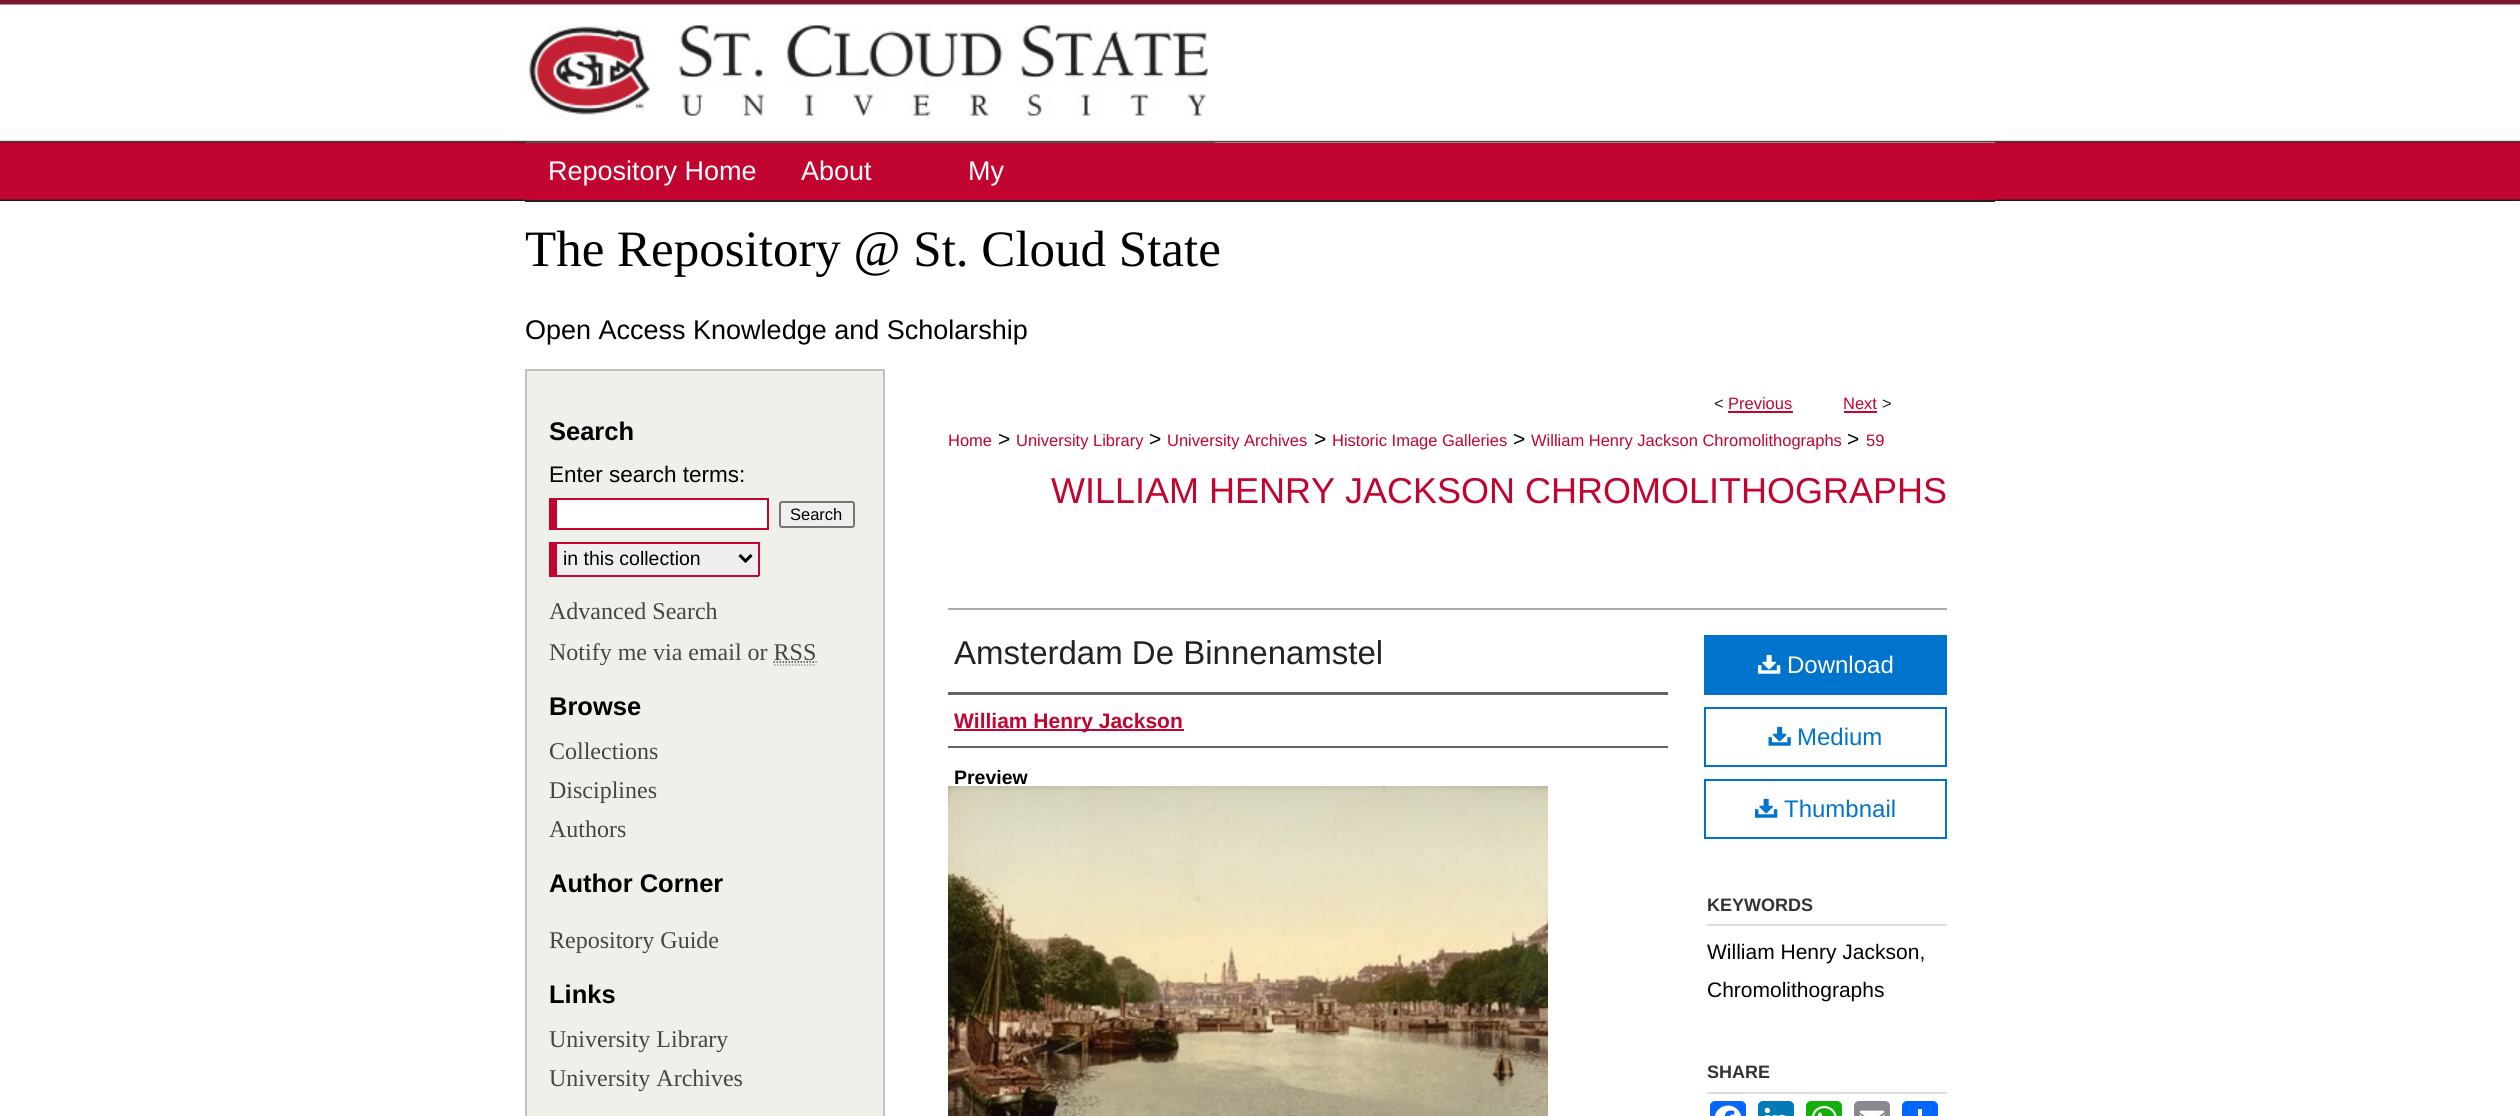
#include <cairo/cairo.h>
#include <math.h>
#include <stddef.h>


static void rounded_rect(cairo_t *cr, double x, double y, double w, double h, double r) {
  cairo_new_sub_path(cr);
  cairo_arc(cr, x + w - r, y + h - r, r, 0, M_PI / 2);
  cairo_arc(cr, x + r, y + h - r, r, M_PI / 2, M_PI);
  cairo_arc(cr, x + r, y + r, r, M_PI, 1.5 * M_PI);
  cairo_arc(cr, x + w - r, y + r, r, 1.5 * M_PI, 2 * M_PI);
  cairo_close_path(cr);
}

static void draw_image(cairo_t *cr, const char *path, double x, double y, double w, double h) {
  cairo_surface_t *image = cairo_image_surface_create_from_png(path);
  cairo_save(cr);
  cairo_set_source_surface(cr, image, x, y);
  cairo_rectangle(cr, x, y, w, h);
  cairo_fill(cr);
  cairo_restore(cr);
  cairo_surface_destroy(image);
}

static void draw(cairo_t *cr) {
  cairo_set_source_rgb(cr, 1, 1, 1);
  cairo_paint(cr);
  draw_image(cr, "images/1.png", 0, 0, 2520, 201);
  cairo_set_source_rgb(cr, 1, 1, 1);
  cairo_rectangle(cr, 1215, 142, 780, 1);
  cairo_fill(cr);
  draw_image(cr, "images/2.png", 525, 0, 1470, 143);
  cairo_set_source_rgb(cr, 92 / 255.0, 85 / 255.0, 82 / 255.0);
  cairo_rectangle(cr, 525, 142, 690, 1);
  cairo_fill(cr);
  cairo_set_source_rgb(cr, 194 / 255.0, 4 / 255.0, 48 / 255.0);
  cairo_rectangle(cr, 525, 143, 1470, 57);
  cairo_fill(cr);
  cairo_set_source_rgb(cr, 37 / 255.0, 29 / 255.0, 26 / 255.0);
  cairo_rectangle(cr, 525, 201, 1470, 1);
  cairo_fill(cr);
  cairo_set_source_rgb(cr, 240 / 255.0, 240 / 255.0, 234 / 255.0);
  cairo_rectangle(cr, 526, 370, 358, 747);
  cairo_fill_preserve(cr);
  cairo_set_source_rgb(cr, 194 / 255.0, 194 / 255.0, 183 / 255.0);
  cairo_stroke(cr);
  cairo_set_source_rgb(cr, 1, 1, 1);
  cairo_rectangle(cr, 557, 500, 210, 28);
  cairo_fill(cr);
  cairo_set_source_rgb(cr, 194 / 255.0, 4 / 255.0, 48 / 255.0);
  cairo_rectangle(cr, 549, 498, 219, 2);
  cairo_fill(cr);
  cairo_rectangle(cr, 767, 498, 2, 32);
  cairo_fill(cr);
  cairo_rectangle(cr, 549, 528, 219, 2);
  cairo_fill(cr);
  cairo_rectangle(cr, 549, 498, 8, 32);
  cairo_fill(cr);
  cairo_set_source_rgb(cr, 239 / 255.0, 239 / 255.0, 239 / 255.0);
  rounded_rect(cr, 780, 502, 74, 25, 2);
  cairo_fill_preserve(cr);
  cairo_set_source_rgb(cr, 118 / 255.0, 118 / 255.0, 118 / 255.0);
  cairo_stroke(cr);
  cairo_set_source_rgb(cr, 239 / 255.0, 239 / 255.0, 239 / 255.0);
  cairo_rectangle(cr, 557, 544, 201, 31);
  cairo_fill(cr);
  cairo_set_source_rgb(cr, 194 / 255.0, 4 / 255.0, 48 / 255.0);
  cairo_rectangle(cr, 549, 542, 210, 2);
  cairo_fill(cr);
  cairo_rectangle(cr, 758, 542, 2, 34);
  cairo_fill(cr);
  cairo_rectangle(cr, 549, 575, 210, 2);
  cairo_fill(cr);
  cairo_rectangle(cr, 549, 542, 8, 34);
  cairo_fill(cr);
  cairo_new_path(cr);
  cairo_move_to(cr, 739.5, 555);
  cairo_line_to(cr, 745.5, 561);
  cairo_line_to(cr, 751.5, 555);
  cairo_set_source_rgb(cr, 0, 0, 0);
  cairo_set_line_width(cr, 3);
  cairo_stroke(cr);
  cairo_new_path(cr);
  cairo_move_to(cr, 773.5, 662);
  cairo_line_to(cr, 816.5, 662);
  cairo_set_source_rgb(cr, 69 / 255.0, 69 / 255.0, 69 / 255.0);
  cairo_set_line_width(cr, 1.5);
  cairo_set_dash(cr, (double[]){1.5, 1.5}, 2, 0);
  cairo_stroke(cr);
  cairo_set_source_rgb(cr, 194 / 255.0, 4 / 255.0, 48 / 255.0);
  cairo_rectangle(cr, 1728, 411, 65, 2);
  cairo_fill(cr);
  cairo_rectangle(cr, 1844, 411, 33, 2);
  cairo_fill(cr);
  cairo_set_source_rgb(cr, 170 / 255.0, 170 / 255.0, 170 / 255.0);
  cairo_rectangle(cr, 948, 608, 999, 2);
  cairo_fill(cr);
  cairo_set_source_rgb(cr, 102 / 255.0, 102 / 255.0, 102 / 255.0);
  cairo_rectangle(cr, 948, 692, 720, 3);
  cairo_fill(cr);
  cairo_rectangle(cr, 948, 746, 720, 2);
  cairo_fill(cr);
  cairo_set_source_rgb(cr, 194 / 255.0, 4 / 255.0, 48 / 255.0);
  cairo_rectangle(cr, 954, 729, 230, 2);
  cairo_fill(cr);
  draw_image(cr, "images/3.png", 948, 786, 600, 330);
  cairo_set_source_rgb(cr, 0, 116 / 255.0, 204 / 255.0);
  cairo_rectangle(cr, 1704, 635, 243, 60);
  cairo_fill(cr);
  draw_image(cr, "images/4.png", 1758, 654, 23, 20);
  cairo_rectangle(cr, 1705, 708, 241, 58);
  cairo_set_line_width(cr, 2);
  cairo_set_dash(cr, NULL, 0, 0);
  cairo_stroke(cr);
  draw_image(cr, "images/5.png", 1768, 726, 23, 20);
  cairo_rectangle(cr, 1705, 780, 241, 58);
  cairo_stroke(cr);
  draw_image(cr, "images/6.png", 1755, 798, 23, 20);
  cairo_set_source_rgb(cr, 221 / 255.0, 221 / 255.0, 221 / 255.0);
  cairo_rectangle(cr, 1707, 924, 240, 2);
  cairo_fill(cr);
  cairo_rectangle(cr, 1707, 1092, 240, 2);
  cairo_fill(cr);
  cairo_set_source_rgb(cr, 8 / 255.0, 102 / 255.0, 1);
  rounded_rect(cr, 1710, 1101, 36, 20, 5);
  cairo_fill(cr);
  draw_image(cr, "images/7.png", 1714, 1105, 28, 11);
  cairo_set_source_rgb(cr, 0, 123 / 255.0, 181 / 255.0);
  rounded_rect(cr, 1758, 1101, 36, 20, 5);
  cairo_fill(cr);
  draw_image(cr, "images/8.png", 1764, 1107, 22, 9);
  cairo_set_source_rgb(cr, 18 / 255.0, 175 / 255.0, 10 / 255.0);
  rounded_rect(cr, 1806, 1101, 36, 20, 5);
  cairo_fill(cr);
  draw_image(cr, "images/9.png", 1811, 1106, 26, 10);
  cairo_set_source_rgb(cr, 136 / 255.0, 137 / 255.0, 144 / 255.0);
  rounded_rect(cr, 1854, 1101, 36, 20, 5);
  cairo_fill(cr);
  draw_image(cr, "images/10.png", 1859, 1110, 26, 6);
  cairo_set_source_rgb(cr, 1 / 255.0, 102 / 255.0, 1);
  rounded_rect(cr, 1902, 1101, 36, 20, 5);
  cairo_fill(cr);
  cairo_set_source_rgb(cr, 1, 1, 1);
  cairo_rectangle(cr, 1918, 1109, 4, 7);
  cairo_fill(cr);
  cairo_select_font_face(cr, "Liberation Sans", CAIRO_FONT_SLANT_NORMAL, CAIRO_FONT_WEIGHT_NORMAL);
  cairo_set_font_size(cr, 27);
  cairo_move_to(cr, 548, 180);
  cairo_show_text(cr, "Repository Home");
  cairo_move_to(cr, 801, 180);
  cairo_show_text(cr, "About");
  cairo_move_to(cr, 968, 180);
  cairo_show_text(cr, "My");
  cairo_select_font_face(cr, "Liberation Serif", CAIRO_FONT_SLANT_NORMAL, CAIRO_FONT_WEIGHT_NORMAL);
  cairo_set_font_size(cr, 51);
  cairo_set_source_rgb(cr, 0, 0, 0);
  cairo_move_to(cr, 525, 266);
  cairo_show_text(cr, "The Repository @ St. Cloud State");
  cairo_select_font_face(cr, "Liberation Sans", CAIRO_FONT_SLANT_NORMAL, CAIRO_FONT_WEIGHT_NORMAL);
  cairo_set_font_size(cr, 27);
  cairo_move_to(cr, 525, 339);
  cairo_show_text(cr, "Open Access Knowledge and Scholarship");
  cairo_select_font_face(cr, "Liberation Sans", CAIRO_FONT_SLANT_NORMAL, CAIRO_FONT_WEIGHT_BOLD);
  cairo_set_font_size(cr, 25.5);
  cairo_move_to(cr, 549, 440);
  cairo_show_text(cr, "Search");
  cairo_select_font_face(cr, "Liberation Sans", CAIRO_FONT_SLANT_NORMAL, CAIRO_FONT_WEIGHT_NORMAL);
  cairo_set_font_size(cr, 22.5);
  cairo_move_to(cr, 549, 482);
  cairo_show_text(cr, "Enter search terms:");
  cairo_set_font_size(cr, 16.5);
  cairo_move_to(cr, 790, 520);
  cairo_show_text(cr, "Search");
  cairo_set_font_size(cr, 19.5);
  cairo_move_to(cr, 563, 565);
  cairo_show_text(cr, "in this collection");
  cairo_select_font_face(cr, "Liberation Serif", CAIRO_FONT_SLANT_NORMAL, CAIRO_FONT_WEIGHT_NORMAL);
  cairo_set_font_size(cr, 24);
  cairo_set_source_rgb(cr, 69 / 255.0, 69 / 255.0, 69 / 255.0);
  cairo_move_to(cr, 549, 619);
  cairo_show_text(cr, "Advanced Search");
  cairo_move_to(cr, 549, 660);
  cairo_show_text(cr, "Notify me via email or RSS");
  cairo_new_path(cr);
  cairo_move_to(cr, 774, 665);
  cairo_line_to(cr, 816, 665);
  cairo_set_source_rgb(cr, 153 / 255.0, 153 / 255.0, 153 / 255.0);
  cairo_set_line_width(cr, 1.5);
  cairo_set_dash(cr, (double[]){1.5, 1.5}, 2, 0);
  cairo_stroke(cr);
  cairo_select_font_face(cr, "Liberation Sans", CAIRO_FONT_SLANT_NORMAL, CAIRO_FONT_WEIGHT_BOLD);
  cairo_set_font_size(cr, 25.5);
  cairo_set_source_rgb(cr, 0, 0, 0);
  cairo_move_to(cr, 549, 715);
  cairo_show_text(cr, "Browse");
  cairo_select_font_face(cr, "Liberation Serif", CAIRO_FONT_SLANT_NORMAL, CAIRO_FONT_WEIGHT_NORMAL);
  cairo_set_font_size(cr, 24);
  cairo_set_source_rgb(cr, 69 / 255.0, 69 / 255.0, 69 / 255.0);
  cairo_move_to(cr, 549, 759);
  cairo_show_text(cr, "Collections");
  cairo_move_to(cr, 549, 798);
  cairo_show_text(cr, "Disciplines");
  cairo_move_to(cr, 549, 837);
  cairo_show_text(cr, "Authors");
  cairo_select_font_face(cr, "Liberation Sans", CAIRO_FONT_SLANT_NORMAL, CAIRO_FONT_WEIGHT_BOLD);
  cairo_set_font_size(cr, 25.5);
  cairo_set_source_rgb(cr, 0, 0, 0);
  cairo_move_to(cr, 549, 892);
  cairo_show_text(cr, "Author Corner");
  cairo_select_font_face(cr, "Liberation Serif", CAIRO_FONT_SLANT_NORMAL, CAIRO_FONT_WEIGHT_NORMAL);
  cairo_set_font_size(cr, 24);
  cairo_set_source_rgb(cr, 69 / 255.0, 69 / 255.0, 69 / 255.0);
  cairo_move_to(cr, 549, 948);
  cairo_show_text(cr, "Repository Guide");
  cairo_select_font_face(cr, "Liberation Sans", CAIRO_FONT_SLANT_NORMAL, CAIRO_FONT_WEIGHT_BOLD);
  cairo_set_font_size(cr, 25.5);
  cairo_set_source_rgb(cr, 0, 0, 0);
  cairo_move_to(cr, 549, 1003);
  cairo_show_text(cr, "Links");
  cairo_select_font_face(cr, "Liberation Serif", CAIRO_FONT_SLANT_NORMAL, CAIRO_FONT_WEIGHT_NORMAL);
  cairo_set_font_size(cr, 24);
  cairo_set_source_rgb(cr, 69 / 255.0, 69 / 255.0, 69 / 255.0);
  cairo_move_to(cr, 549, 1047);
  cairo_show_text(cr, "University Library");
  cairo_move_to(cr, 549, 1086);
  cairo_show_text(cr, "University Archives");
  cairo_select_font_face(cr, "Liberation Sans", CAIRO_FONT_SLANT_NORMAL, CAIRO_FONT_WEIGHT_NORMAL);
  cairo_set_font_size(cr, 16.5);
  cairo_set_source_rgb(cr, 34 / 255.0, 34 / 255.0, 34 / 255.0);
  cairo_move_to(cr, 1714, 409);
  cairo_show_text(cr, "<");
  cairo_set_source_rgb(cr, 194 / 255.0, 4 / 255.0, 48 / 255.0);
  cairo_move_to(cr, 1728, 409);
  cairo_show_text(cr, "Previous");
  cairo_move_to(cr, 1843, 409);
  cairo_show_text(cr, "Next");
  cairo_set_source_rgb(cr, 34 / 255.0, 34 / 255.0, 34 / 255.0);
  cairo_move_to(cr, 1882, 409);
  cairo_show_text(cr, ">");
  cairo_set_source_rgb(cr, 194 / 255.0, 4 / 255.0, 48 / 255.0);
  cairo_move_to(cr, 948, 446);
  cairo_show_text(cr, "Home");
  cairo_set_font_size(cr, 21);
  cairo_set_source_rgb(cr, 0, 0, 0);
  cairo_move_to(cr, 998, 446);
  cairo_show_text(cr, ">");
  cairo_set_font_size(cr, 16.5);
  cairo_set_source_rgb(cr, 194 / 255.0, 4 / 255.0, 48 / 255.0);
  cairo_move_to(cr, 1016, 446);
  cairo_show_text(cr, "University Library");
  cairo_set_font_size(cr, 21);
  cairo_set_source_rgb(cr, 0, 0, 0);
  cairo_move_to(cr, 1149, 446);
  cairo_show_text(cr, ">");
  cairo_set_font_size(cr, 16.5);
  cairo_set_source_rgb(cr, 194 / 255.0, 4 / 255.0, 48 / 255.0);
  cairo_move_to(cr, 1167, 446);
  cairo_show_text(cr, "University Archives");
  cairo_set_font_size(cr, 21);
  cairo_set_source_rgb(cr, 0, 0, 0);
  cairo_move_to(cr, 1314, 446);
  cairo_show_text(cr, ">");
  cairo_set_font_size(cr, 16.5);
  cairo_set_source_rgb(cr, 194 / 255.0, 4 / 255.0, 48 / 255.0);
  cairo_move_to(cr, 1332, 446);
  cairo_show_text(cr, "Historic Image Galleries");
  cairo_set_font_size(cr, 21);
  cairo_set_source_rgb(cr, 0, 0, 0);
  cairo_move_to(cr, 1513, 446);
  cairo_show_text(cr, ">");
  cairo_set_font_size(cr, 16.5);
  cairo_set_source_rgb(cr, 194 / 255.0, 4 / 255.0, 48 / 255.0);
  cairo_move_to(cr, 1531, 446);
  cairo_show_text(cr, "William Henry Jackson Chromolithographs");
  cairo_set_font_size(cr, 21);
  cairo_set_source_rgb(cr, 0, 0, 0);
  cairo_move_to(cr, 1847, 446);
  cairo_show_text(cr, ">");
  cairo_set_font_size(cr, 16.5);
  cairo_set_source_rgb(cr, 194 / 255.0, 4 / 255.0, 48 / 255.0);
  cairo_move_to(cr, 1866, 446);
  cairo_show_text(cr, "59");
  cairo_set_font_size(cr, 36);
  cairo_move_to(cr, 1051, 503);
  cairo_show_text(cr, "WILLIAM HENRY JACKSON CHROMOLITHOGRAPHS");
  cairo_set_font_size(cr, 33);
  cairo_set_source_rgb(cr, 34 / 255.0, 34 / 255.0, 34 / 255.0);
  cairo_move_to(cr, 954, 664);
  cairo_show_text(cr, "Amsterdam De Binnenamstel");
  cairo_select_font_face(cr, "Liberation Sans", CAIRO_FONT_SLANT_NORMAL, CAIRO_FONT_WEIGHT_BOLD);
  cairo_set_font_size(cr, 21);
  cairo_set_source_rgb(cr, 194 / 255.0, 4 / 255.0, 48 / 255.0);
  cairo_move_to(cr, 954, 728);
  cairo_show_text(cr, "William Henry Jackson");
  cairo_set_font_size(cr, 19.5);
  cairo_set_source_rgb(cr, 0, 0, 0);
  cairo_move_to(cr, 954, 784);
  cairo_show_text(cr, "Preview");
  cairo_select_font_face(cr, "Liberation Sans", CAIRO_FONT_SLANT_NORMAL, CAIRO_FONT_WEIGHT_NORMAL);
  cairo_set_font_size(cr, 24);
  cairo_set_source_rgb(cr, 1, 1, 1);
  cairo_move_to(cr, 1787, 673);
  cairo_show_text(cr, "Download");
  cairo_set_source_rgb(cr, 0, 116 / 255.0, 204 / 255.0);
  cairo_move_to(cr, 1797, 745);
  cairo_show_text(cr, "Medium");
  cairo_move_to(cr, 1784, 817);
  cairo_show_text(cr, "Thumbnail");
  cairo_select_font_face(cr, "Liberation Sans", CAIRO_FONT_SLANT_NORMAL, CAIRO_FONT_WEIGHT_BOLD);
  cairo_set_font_size(cr, 18);
  cairo_set_source_rgb(cr, 51 / 255.0, 51 / 255.0, 51 / 255.0);
  cairo_move_to(cr, 1707, 911);
  cairo_show_text(cr, "KEYWORDS");
  cairo_select_font_face(cr, "Liberation Sans", CAIRO_FONT_SLANT_NORMAL, CAIRO_FONT_WEIGHT_NORMAL);
  cairo_set_font_size(cr, 21);
  cairo_set_source_rgb(cr, 0, 0, 0);
  cairo_move_to(cr, 1707, 959);
  cairo_show_text(cr, "William Henry Jackson,");
  cairo_move_to(cr, 1707, 997);
  cairo_show_text(cr, "Chromolithographs");
  cairo_select_font_face(cr, "Liberation Sans", CAIRO_FONT_SLANT_NORMAL, CAIRO_FONT_WEIGHT_BOLD);
  cairo_set_font_size(cr, 18);
  cairo_set_source_rgb(cr, 51 / 255.0, 51 / 255.0, 51 / 255.0);
  cairo_move_to(cr, 1707, 1078);
  cairo_show_text(cr, "SHARE");
}

int main(void) {
  cairo_surface_t *surface = cairo_image_surface_create(CAIRO_FORMAT_RGB24, 2520, 1116);
  cairo_t *cr = cairo_create(surface);
  cairo_font_options_t *options = cairo_font_options_create();
  cairo_font_options_set_hint_metrics(options, CAIRO_HINT_METRICS_OFF);
  cairo_font_options_set_hint_style(options, CAIRO_HINT_STYLE_NONE);
  cairo_set_font_options(cr, options);
  cairo_set_miter_limit(cr, 4);
  draw(cr);
  cairo_surface_write_to_png(surface, "out.png");
  cairo_font_options_destroy(options);
  cairo_destroy(cr);
  cairo_surface_destroy(surface);
  return 0;
}
